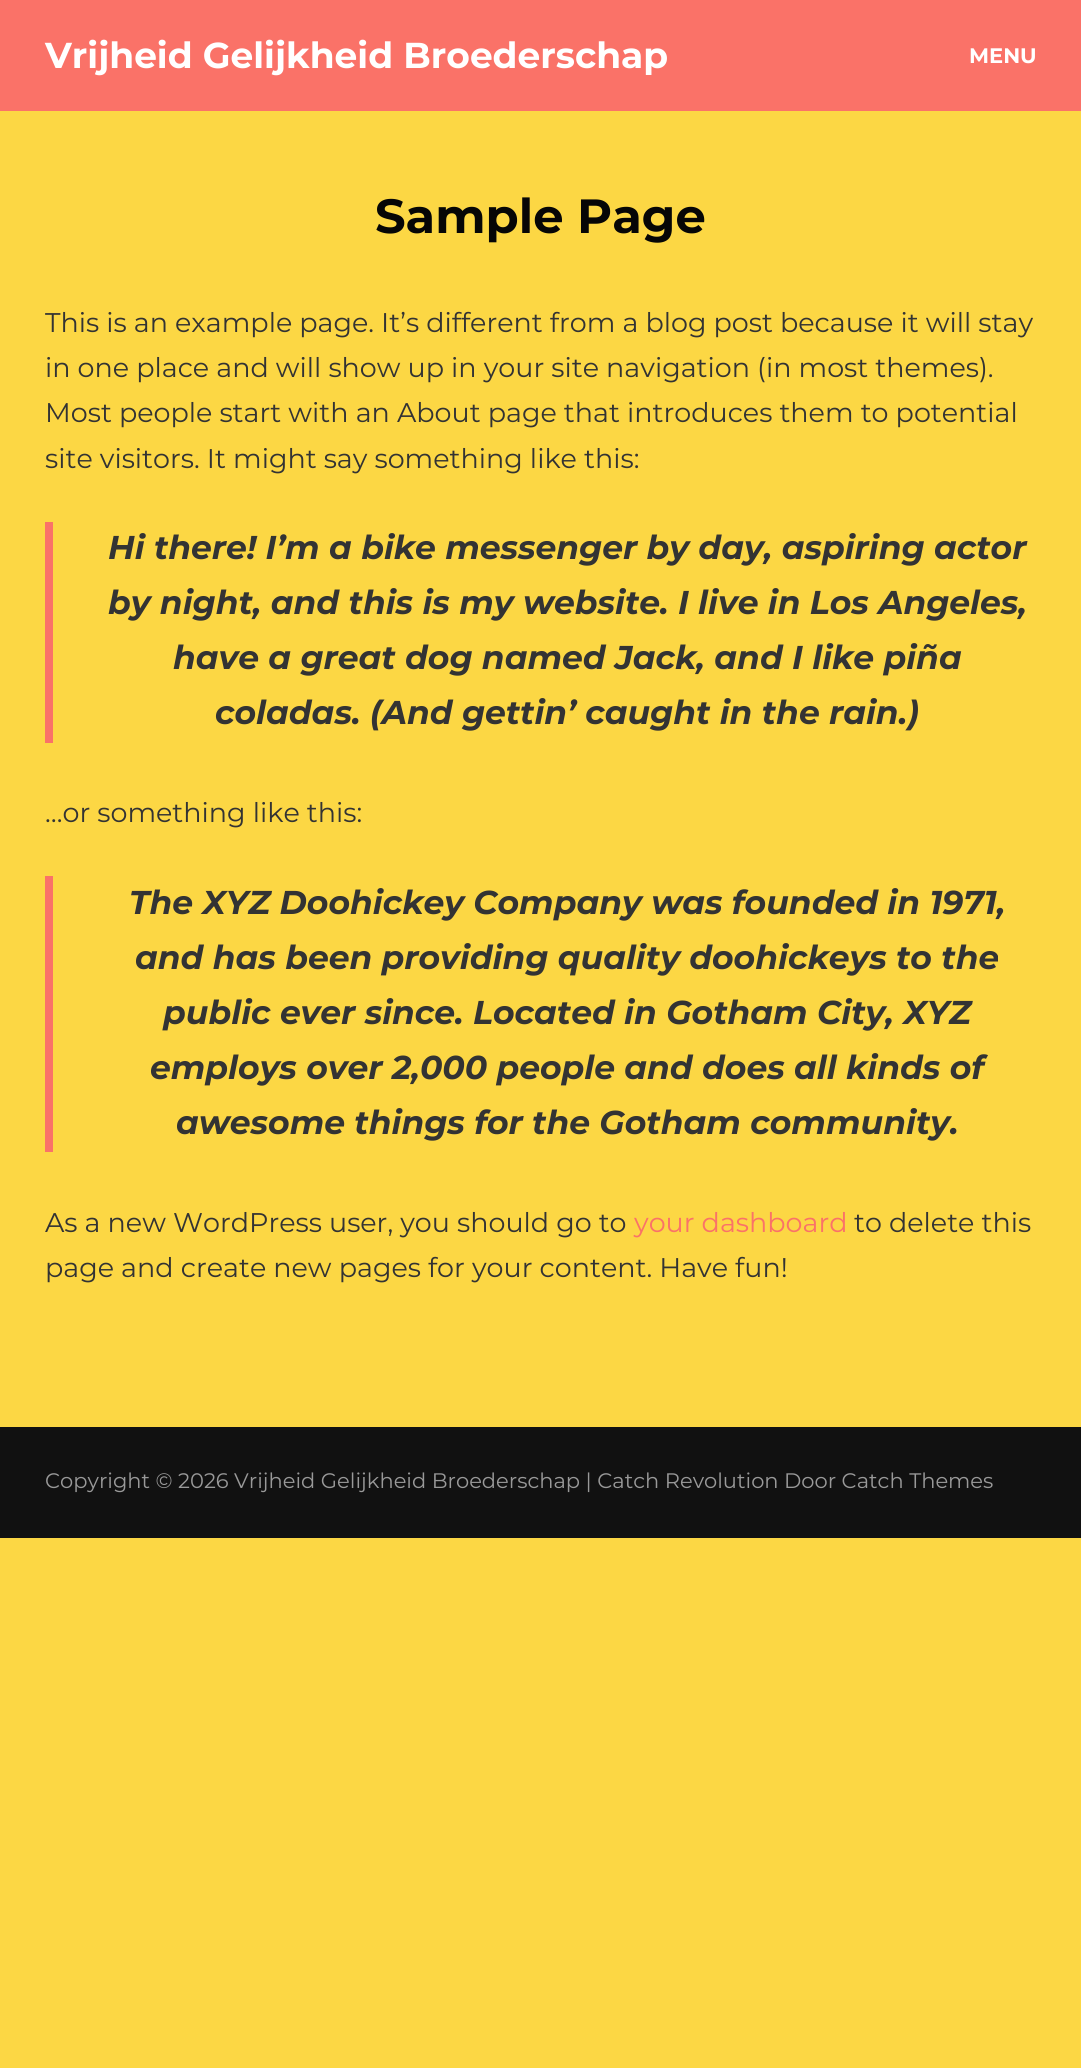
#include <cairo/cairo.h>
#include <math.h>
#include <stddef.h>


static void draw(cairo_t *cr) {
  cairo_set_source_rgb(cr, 252 / 255.0, 215 / 255.0, 68 / 255.0);
  cairo_paint(cr);
  cairo_set_source_rgb(cr, 250 / 255.0, 114 / 255.0, 104 / 255.0);
  cairo_rectangle(cr, 0, 0, 1081, 111);
  cairo_fill(cr);
  cairo_rectangle(cr, 45, 522, 8, 221);
  cairo_fill(cr);
  cairo_rectangle(cr, 45, 876, 8, 276);
  cairo_fill(cr);
  cairo_set_source_rgb(cr, 17 / 255.0, 17 / 255.0, 17 / 255.0);
  cairo_rectangle(cr, 0, 1427, 1081, 111);
  cairo_fill(cr);
  cairo_select_font_face(cr, "Montserrat", CAIRO_FONT_SLANT_NORMAL, CAIRO_FONT_WEIGHT_BOLD);
  cairo_set_font_size(cr, 36);
  cairo_set_source_rgb(cr, 1, 1, 1);
  cairo_move_to(cr, 45, 68);
  cairo_show_text(cr, "Vrijheid Gelijkheid Broederschap");
  cairo_set_font_size(cr, 21);
  cairo_move_to(cr, 969, 63);
  cairo_show_text(cr, "MENU");
  cairo_set_font_size(cr, 48);
  cairo_set_source_rgb(cr, 6 / 255.0, 6 / 255.0, 6 / 255.0);
  cairo_move_to(cr, 375, 233);
  cairo_show_text(cr, "Sample Page");
  cairo_select_font_face(cr, "Montserrat", CAIRO_FONT_SLANT_NORMAL, CAIRO_FONT_WEIGHT_NORMAL);
  cairo_set_font_size(cr, 27);
  cairo_set_source_rgb(cr, 51 / 255.0, 51 / 255.0, 51 / 255.0);
  cairo_move_to(cr, 45, 332);
  cairo_show_text(cr, "This is an example page. It’s different from a blog post because it will stay");
  cairo_move_to(cr, 45, 377);
  cairo_show_text(cr, "in one place and will show up in your site navigation (in most themes).");
  cairo_move_to(cr, 45, 422);
  cairo_show_text(cr, "Most people start with an About page that introduces them to potential");
  cairo_move_to(cr, 45, 468);
  cairo_show_text(cr, "site visitors. It might say something like this:");
  cairo_select_font_face(cr, "Montserrat", CAIRO_FONT_SLANT_ITALIC, CAIRO_FONT_WEIGHT_BOLD);
  cairo_set_font_size(cr, 33);
  cairo_move_to(cr, 108, 559);
  cairo_show_text(cr, "Hi there! I’m a bike messenger by day, aspiring actor");
  cairo_move_to(cr, 108, 614);
  cairo_show_text(cr, "by night, and this is my website. I live in Los Angeles,");
  cairo_move_to(cr, 173, 669);
  cairo_show_text(cr, "have a great dog named Jack, and I like piña");
  cairo_move_to(cr, 215, 724);
  cairo_show_text(cr, "coladas. (And gettin’ caught in the rain.)");
  cairo_select_font_face(cr, "Montserrat", CAIRO_FONT_SLANT_NORMAL, CAIRO_FONT_WEIGHT_NORMAL);
  cairo_set_font_size(cr, 27);
  cairo_move_to(cr, 45, 822);
  cairo_show_text(cr, "…or something like this:");
  cairo_select_font_face(cr, "Montserrat", CAIRO_FONT_SLANT_ITALIC, CAIRO_FONT_WEIGHT_BOLD);
  cairo_set_font_size(cr, 33);
  cairo_move_to(cr, 129, 914);
  cairo_show_text(cr, "The XYZ Doohickey Company was founded in 1971,");
  cairo_move_to(cr, 135, 969);
  cairo_show_text(cr, "and has been providing quality doohickeys to the");
  cairo_move_to(cr, 163, 1024);
  cairo_show_text(cr, "public ever since. Located in Gotham City, XYZ");
  cairo_move_to(cr, 150, 1079);
  cairo_show_text(cr, "employs over 2,000 people and does all kinds of");
  cairo_move_to(cr, 176, 1134);
  cairo_show_text(cr, "awesome things for the Gotham community.");
  cairo_select_font_face(cr, "Montserrat", CAIRO_FONT_SLANT_NORMAL, CAIRO_FONT_WEIGHT_NORMAL);
  cairo_set_font_size(cr, 27);
  cairo_move_to(cr, 45, 1232);
  cairo_show_text(cr, "As a new WordPress user, you should go to");
  cairo_set_source_rgb(cr, 250 / 255.0, 114 / 255.0, 104 / 255.0);
  cairo_move_to(cr, 634, 1232);
  cairo_show_text(cr, "your dashboard");
  cairo_set_source_rgb(cr, 51 / 255.0, 51 / 255.0, 51 / 255.0);
  cairo_move_to(cr, 854, 1232);
  cairo_show_text(cr, "to delete this");
  cairo_move_to(cr, 45, 1277);
  cairo_show_text(cr, "page and create new pages for your content. Have fun!");
  cairo_set_font_size(cr, 21);
  cairo_set_source_rgb(cr, 153 / 255.0, 153 / 255.0, 153 / 255.0);
  cairo_move_to(cr, 45, 1488);
  cairo_show_text(cr, "Copyright © 2026 Vrijheid Gelijkheid Broederschap | Catch Revolution Door Catch Themes");
}

int main(void) {
  cairo_surface_t *surface = cairo_image_surface_create(CAIRO_FORMAT_RGB24, 1081, 2068);
  cairo_t *cr = cairo_create(surface);
  cairo_font_options_t *options = cairo_font_options_create();
  cairo_font_options_set_hint_metrics(options, CAIRO_HINT_METRICS_OFF);
  cairo_font_options_set_hint_style(options, CAIRO_HINT_STYLE_NONE);
  cairo_set_font_options(cr, options);
  cairo_set_miter_limit(cr, 4);
  draw(cr);
  cairo_surface_write_to_png(surface, "out.png");
  cairo_font_options_destroy(options);
  cairo_destroy(cr);
  cairo_surface_destroy(surface);
  return 0;
}
